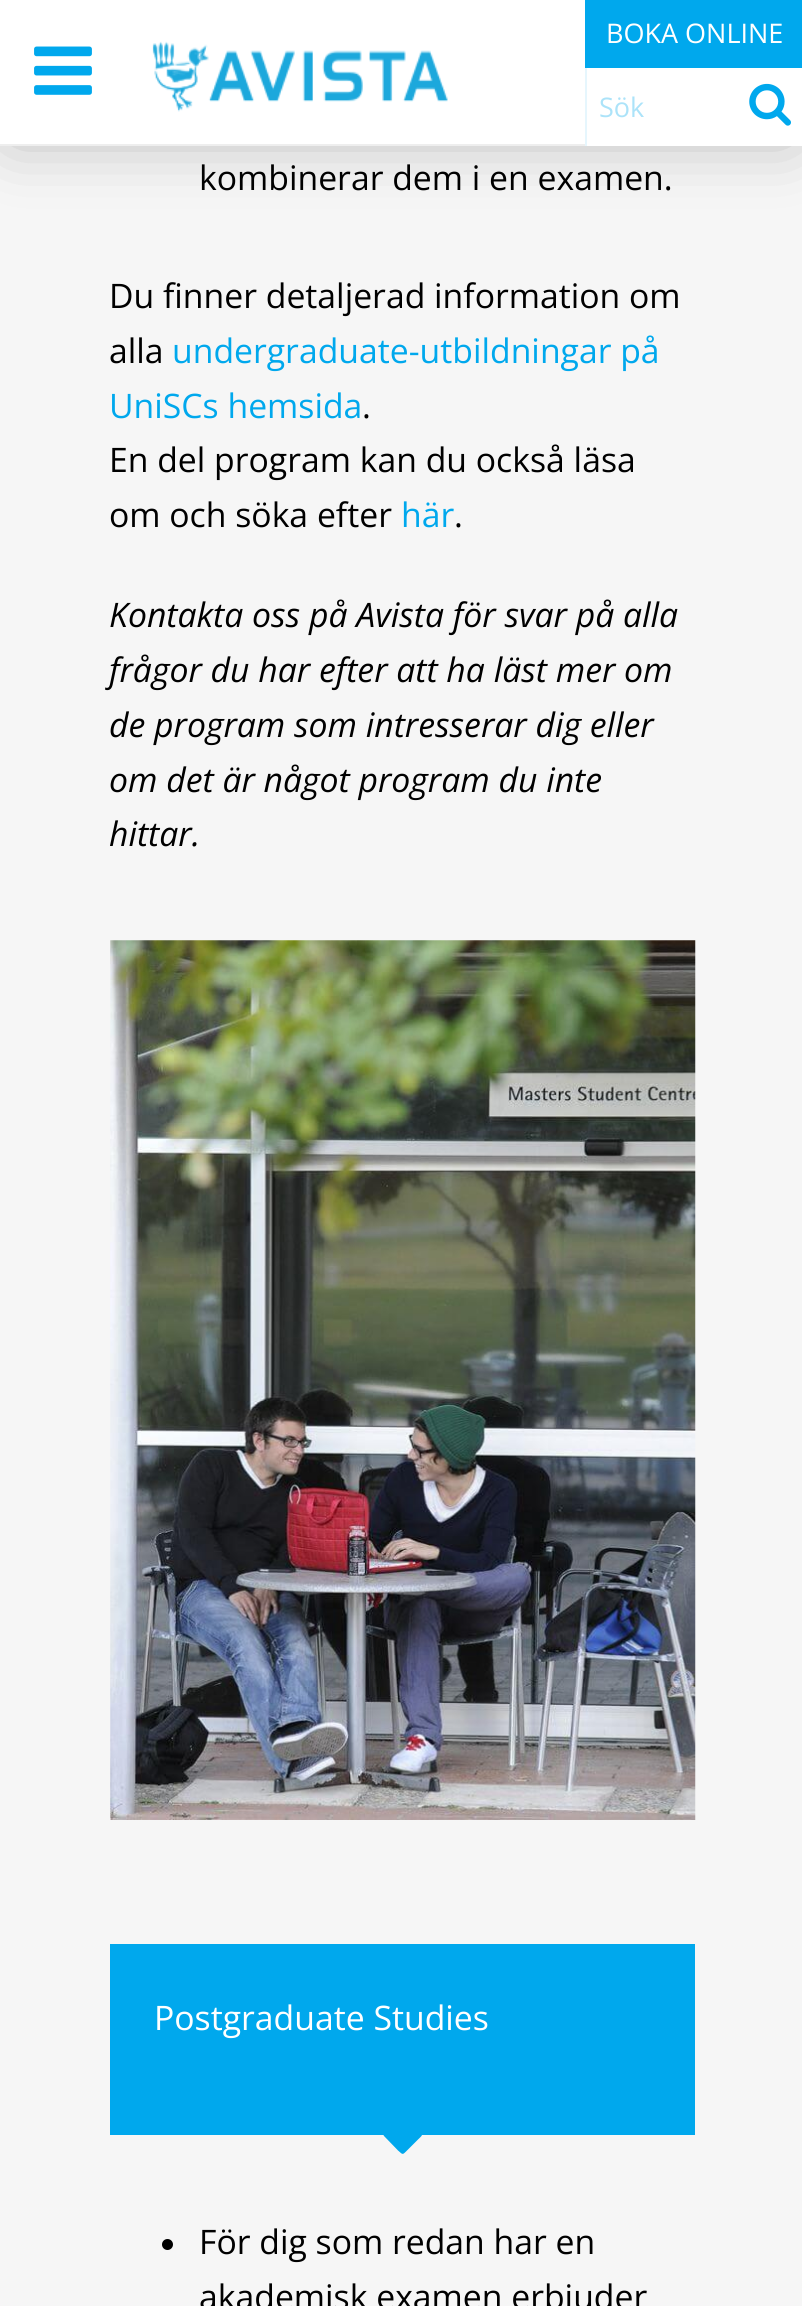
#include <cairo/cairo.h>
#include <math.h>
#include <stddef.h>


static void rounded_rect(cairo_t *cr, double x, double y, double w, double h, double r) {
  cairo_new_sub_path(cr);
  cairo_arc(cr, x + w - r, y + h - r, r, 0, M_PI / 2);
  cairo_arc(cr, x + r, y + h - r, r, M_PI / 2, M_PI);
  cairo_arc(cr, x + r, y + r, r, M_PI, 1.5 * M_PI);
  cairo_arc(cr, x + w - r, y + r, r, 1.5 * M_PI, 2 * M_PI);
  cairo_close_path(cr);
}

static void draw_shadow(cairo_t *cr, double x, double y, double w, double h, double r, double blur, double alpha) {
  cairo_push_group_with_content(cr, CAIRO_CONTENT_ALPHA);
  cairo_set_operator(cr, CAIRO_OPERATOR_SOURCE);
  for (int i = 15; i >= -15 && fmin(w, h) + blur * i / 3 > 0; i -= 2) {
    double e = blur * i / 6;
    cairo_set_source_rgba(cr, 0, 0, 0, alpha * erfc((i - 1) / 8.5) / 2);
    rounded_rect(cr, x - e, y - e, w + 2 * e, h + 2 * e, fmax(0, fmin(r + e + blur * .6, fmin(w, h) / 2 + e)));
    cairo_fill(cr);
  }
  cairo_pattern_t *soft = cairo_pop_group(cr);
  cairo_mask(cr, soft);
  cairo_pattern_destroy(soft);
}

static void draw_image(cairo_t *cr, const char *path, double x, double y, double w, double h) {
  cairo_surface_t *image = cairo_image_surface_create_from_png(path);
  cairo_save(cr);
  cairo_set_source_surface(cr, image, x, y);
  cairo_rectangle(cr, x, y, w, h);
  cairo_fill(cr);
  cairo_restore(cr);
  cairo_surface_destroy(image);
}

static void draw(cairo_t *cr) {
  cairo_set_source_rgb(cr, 246 / 255.0, 246 / 255.0, 246 / 255.0);
  cairo_paint(cr);
  cairo_set_source_rgb(cr, 0, 0, 0);
  draw_shadow(cr, 11, 11, 781, 124, 0, 34, 0.3);
  cairo_set_source_rgb(cr, 1, 1, 1);
  cairo_rectangle(cr, 0, 0, 585, 144);
  cairo_fill(cr);
  cairo_set_source_rgb(cr, 238 / 255.0, 238 / 255.0, 238 / 255.0);
  cairo_rectangle(cr, 0, 144, 585, 2);
  cairo_fill(cr);
  draw_image(cr, "images/1.png", 34, 46, 58, 49);
  draw_image(cr, "images/2.png", 152, 41, 296, 71);
  cairo_set_source_rgb(cr, 0, 168 / 255.0, 237 / 255.0);
  cairo_rectangle(cr, 585, 0, 217, 68);
  cairo_fill(cr);
  cairo_set_source_rgb(cr, 1, 1, 1);
  cairo_rectangle(cr, 587, 68, 215, 78);
  cairo_fill(cr);
  cairo_set_source_rgb(cr, 230 / 255.0, 246 / 255.0, 253 / 255.0);
  cairo_rectangle(cr, 585, 68, 2, 78);
  cairo_fill(cr);
  draw_image(cr, "images/3.png", 749, 83, 42, 43);
  draw_image(cr, "images/4.png", 110, 940, 586, 880);
  cairo_set_source_rgb(cr, 0, 168 / 255.0, 237 / 255.0);
  cairo_rectangle(cr, 110, 1944, 585, 191);
  cairo_fill(cr);
  cairo_new_path(cr);
  cairo_move_to(cr, 421.5, 2133);
  cairo_curve_to(cr, 423.5, 2135, 420, 2137.5, 418.5, 2139);
  cairo_line_to(cr, 407, 2150.5);
  cairo_curve_to(cr, 402.5, 2155, 403, 2155, 398, 2150.5);
  cairo_line_to(cr, 384, 2136);
  cairo_curve_to(cr, 383, 2135, 383.5, 2132.5, 385.5, 2132);
  cairo_line_to(cr, 420, 2132);
  cairo_close_path(cr);
  cairo_fill(cr);
  cairo_set_source_rgb(cr, 0, 0, 0);
  cairo_arc(cr, 167.5, 2244.5, 5.5, 0, 2 * M_PI);
  cairo_fill(cr);
  cairo_select_font_face(cr, "Open Sans", CAIRO_FONT_SLANT_NORMAL, CAIRO_FONT_WEIGHT_NORMAL);
  cairo_set_font_size(cr, 27);
  cairo_set_source_rgb(cr, 1, 1, 1);
  cairo_move_to(cr, 606, 43);
  cairo_show_text(cr, "BOKA ONLINE");
  cairo_set_source_rgb(cr, 172 / 255.0, 227 / 255.0, 249 / 255.0);
  cairo_move_to(cr, 599, 117);
  cairo_show_text(cr, "Sök");
  cairo_set_font_size(cr, 33.75);
  cairo_set_source_rgb(cr, 0, 0, 0);
  cairo_move_to(cr, 199, 190);
  cairo_show_text(cr, "kombinerar dem i en examen.");
  cairo_move_to(cr, 109, 308);
  cairo_show_text(cr, "Du finner detaljerad information om");
  cairo_move_to(cr, 109, 363);
  cairo_show_text(cr, "alla");
  cairo_set_source_rgb(cr, 0, 168 / 255.0, 237 / 255.0);
  cairo_move_to(cr, 172, 363);
  cairo_show_text(cr, "undergraduate-utbildningar på");
  cairo_move_to(cr, 109, 418);
  cairo_show_text(cr, "UniSCs hemsida");
  cairo_set_source_rgb(cr, 0, 0, 0);
  cairo_move_to(cr, 362, 418);
  cairo_show_text(cr, ".");
  cairo_move_to(cr, 109, 472);
  cairo_show_text(cr, "En del program kan du också läsa");
  cairo_move_to(cr, 109, 527);
  cairo_show_text(cr, "om och söka efter");
  cairo_set_source_rgb(cr, 0, 168 / 255.0, 237 / 255.0);
  cairo_move_to(cr, 401, 527);
  cairo_show_text(cr, "här");
  cairo_set_source_rgb(cr, 0, 0, 0);
  cairo_move_to(cr, 454, 527);
  cairo_show_text(cr, ".");
  cairo_select_font_face(cr, "Open Sans", CAIRO_FONT_SLANT_ITALIC, CAIRO_FONT_WEIGHT_NORMAL);
  cairo_move_to(cr, 109, 627);
  cairo_show_text(cr, "Kontakta oss på Avista för svar på alla");
  cairo_move_to(cr, 109, 682);
  cairo_show_text(cr, "frågor du har efter att ha läst mer om");
  cairo_move_to(cr, 109, 737);
  cairo_show_text(cr, "de program som intresserar dig eller");
  cairo_move_to(cr, 109, 792);
  cairo_show_text(cr, "om det är något program du inte");
  cairo_move_to(cr, 109, 846);
  cairo_show_text(cr, "hittar.");
  cairo_select_font_face(cr, "Open Sans", CAIRO_FONT_SLANT_NORMAL, CAIRO_FONT_WEIGHT_NORMAL);
  cairo_set_source_rgb(cr, 1, 1, 1);
  cairo_move_to(cr, 154, 2030);
  cairo_show_text(cr, "Postgraduate Studies");
  cairo_set_source_rgb(cr, 0, 0, 0);
  cairo_move_to(cr, 199, 2254);
  cairo_show_text(cr, "För dig som redan har en");
  cairo_move_to(cr, 199, 2309);
  cairo_show_text(cr, "akademisk examen erbjuder");
}

int main(void) {
  cairo_surface_t *surface = cairo_image_surface_create(CAIRO_FORMAT_RGB24, 802, 2306);
  cairo_t *cr = cairo_create(surface);
  cairo_font_options_t *options = cairo_font_options_create();
  cairo_font_options_set_hint_metrics(options, CAIRO_HINT_METRICS_OFF);
  cairo_font_options_set_hint_style(options, CAIRO_HINT_STYLE_NONE);
  cairo_set_font_options(cr, options);
  cairo_set_miter_limit(cr, 4);
  draw(cr);
  cairo_surface_write_to_png(surface, "out.png");
  cairo_font_options_destroy(options);
  cairo_destroy(cr);
  cairo_surface_destroy(surface);
  return 0;
}
